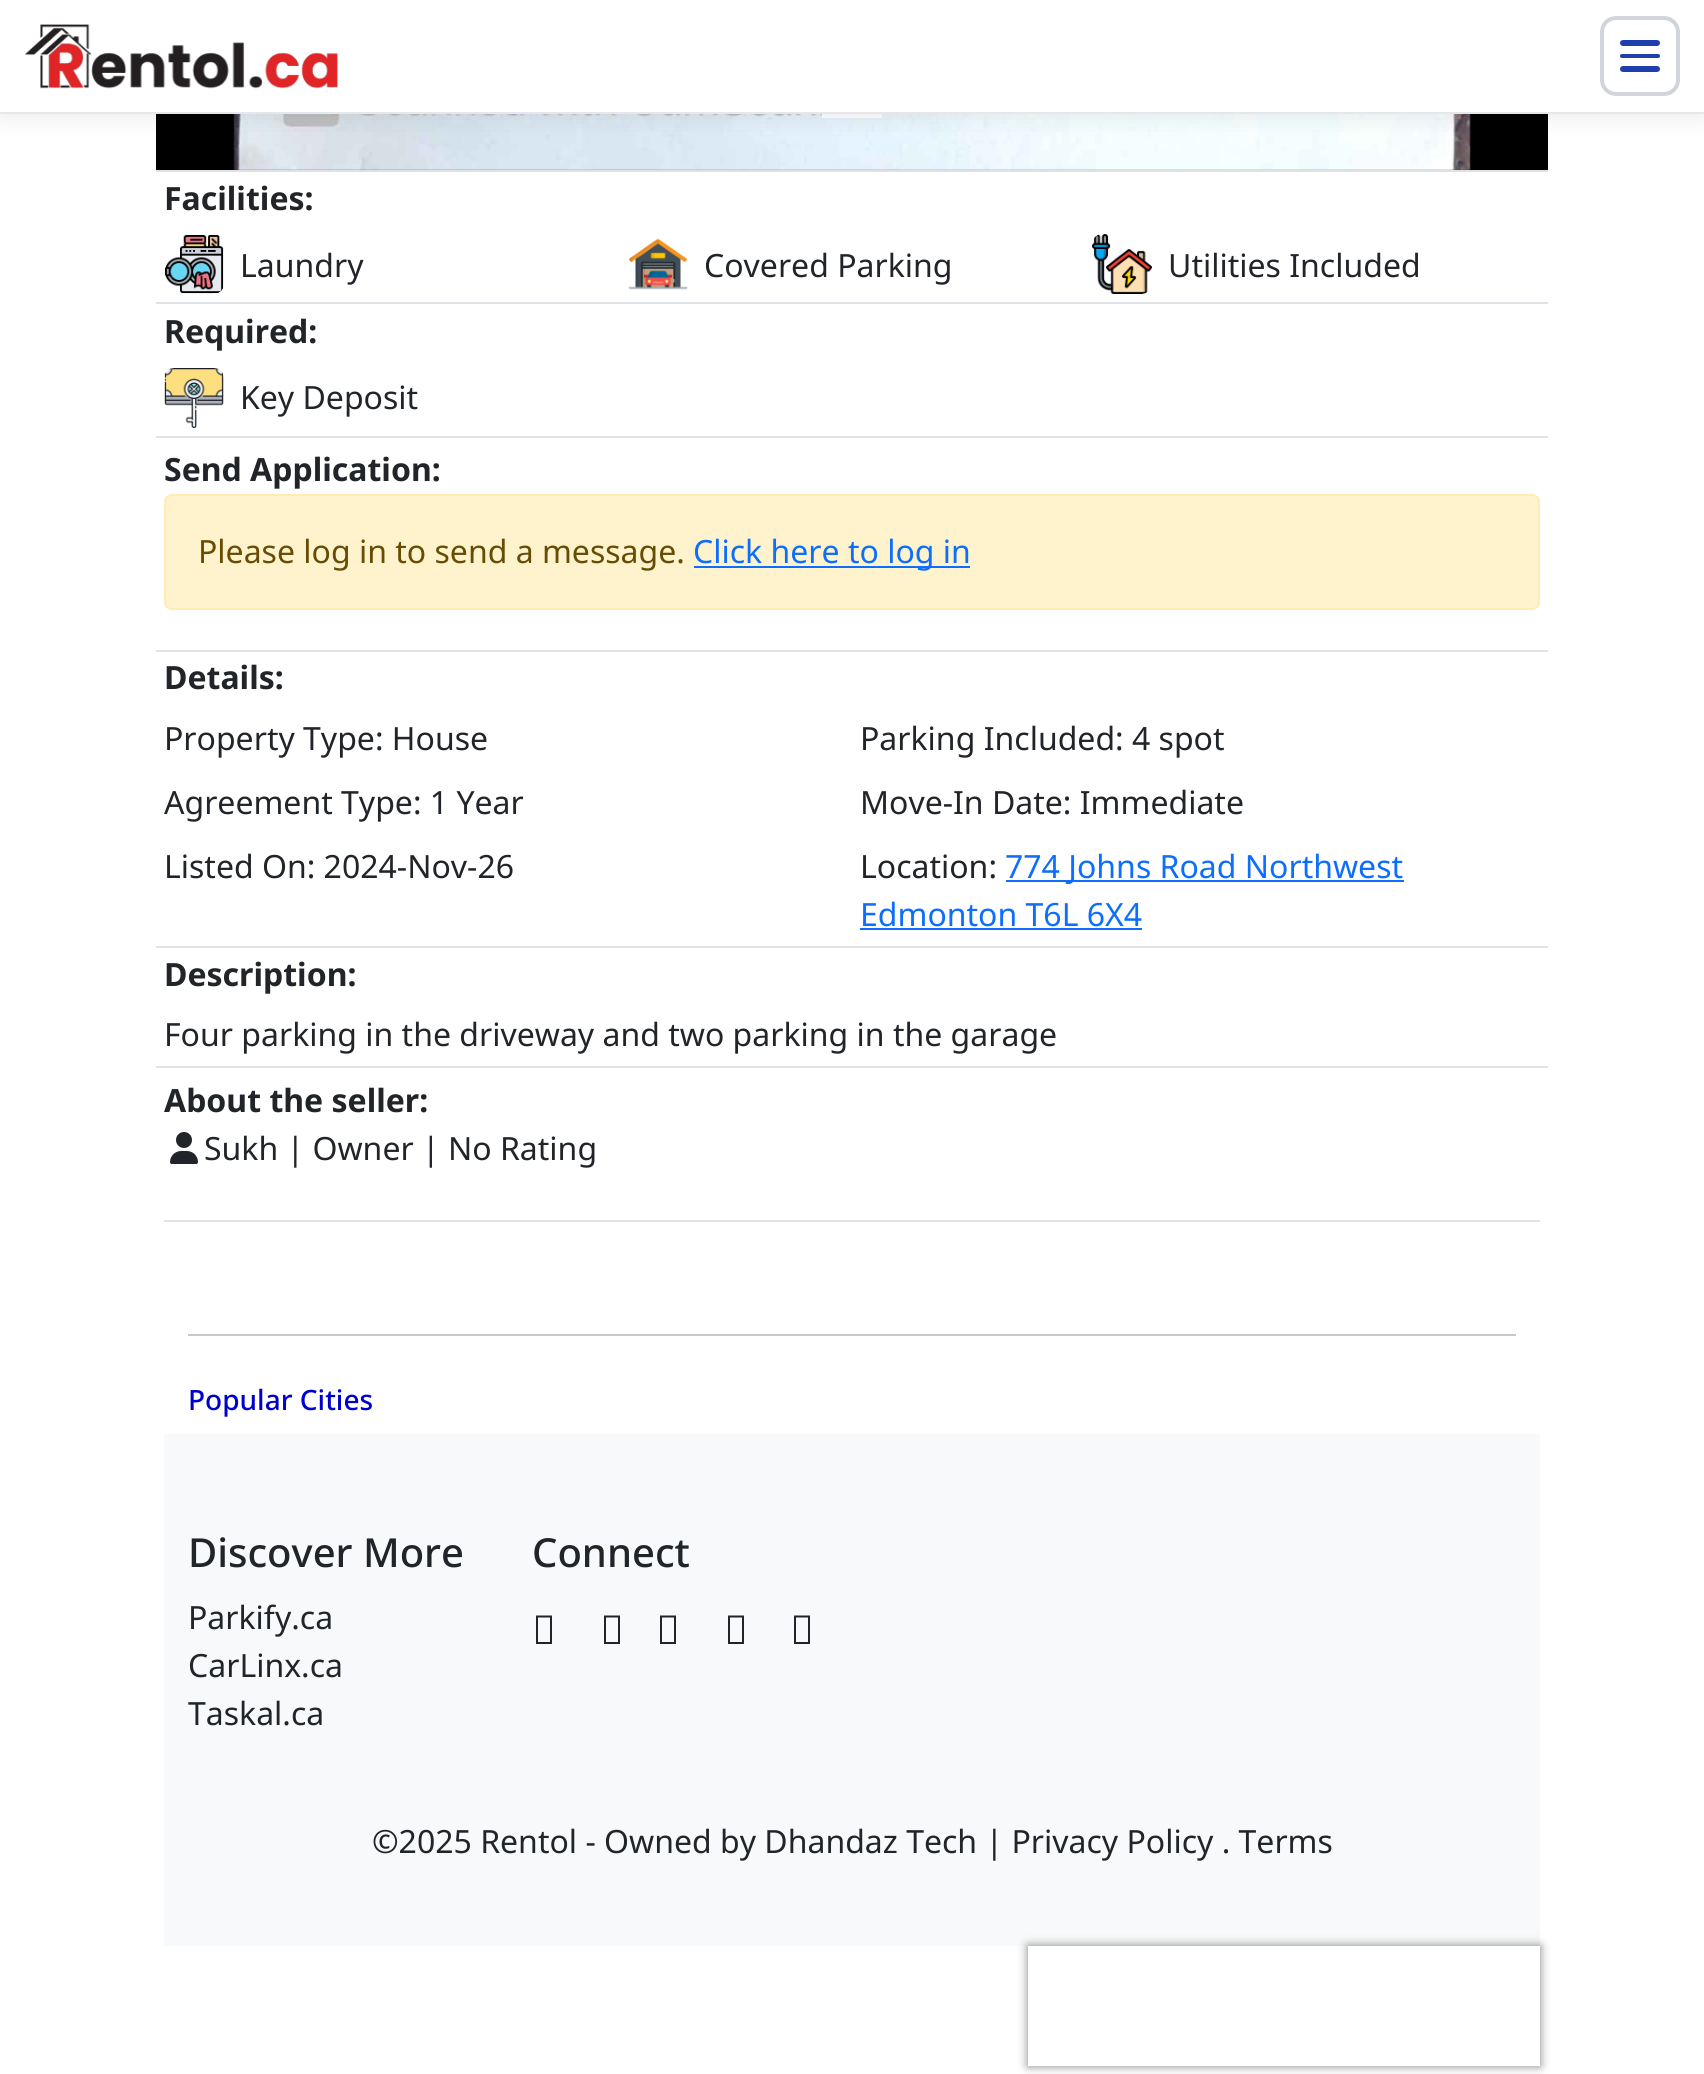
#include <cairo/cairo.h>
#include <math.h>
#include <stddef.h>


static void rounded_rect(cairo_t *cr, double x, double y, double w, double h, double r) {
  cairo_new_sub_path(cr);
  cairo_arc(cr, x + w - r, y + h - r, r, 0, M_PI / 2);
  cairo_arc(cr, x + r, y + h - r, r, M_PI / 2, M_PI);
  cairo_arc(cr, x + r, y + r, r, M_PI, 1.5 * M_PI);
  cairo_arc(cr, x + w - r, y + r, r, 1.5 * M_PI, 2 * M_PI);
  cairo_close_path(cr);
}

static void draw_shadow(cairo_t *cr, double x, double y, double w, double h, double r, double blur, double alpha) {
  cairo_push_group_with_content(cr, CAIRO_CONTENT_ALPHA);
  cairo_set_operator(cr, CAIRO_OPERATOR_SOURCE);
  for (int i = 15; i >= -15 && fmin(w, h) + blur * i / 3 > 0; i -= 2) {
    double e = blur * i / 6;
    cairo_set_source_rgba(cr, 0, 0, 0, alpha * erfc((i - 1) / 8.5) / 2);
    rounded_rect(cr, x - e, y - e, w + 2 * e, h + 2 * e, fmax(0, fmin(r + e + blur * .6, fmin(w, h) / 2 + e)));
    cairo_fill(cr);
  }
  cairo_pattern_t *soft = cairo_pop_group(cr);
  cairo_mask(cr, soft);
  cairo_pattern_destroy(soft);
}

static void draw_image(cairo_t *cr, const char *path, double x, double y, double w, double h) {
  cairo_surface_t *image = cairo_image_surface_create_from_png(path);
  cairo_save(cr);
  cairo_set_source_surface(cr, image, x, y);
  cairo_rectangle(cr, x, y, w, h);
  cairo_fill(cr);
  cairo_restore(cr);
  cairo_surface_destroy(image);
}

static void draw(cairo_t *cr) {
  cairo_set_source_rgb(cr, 1, 1, 1);
  cairo_paint(cr);
  cairo_set_source_rgb(cr, 0, 0, 0);
  cairo_rectangle(cr, 156, 114, 1392, 56);
  cairo_fill(cr);
  draw_image(cr, "images/2.png", 233, 114, 1238, 56);
  cairo_set_source_rgb(cr, 1, 1, 1);
  cairo_rectangle(cr, 822, 114, 60, 4);
  cairo_fill(cr);
  cairo_set_source_rgb(cr, 0, 0, 0);
  draw_shadow(cr, 0, 4, 1704, 114, 0, 12, 0.08);
  cairo_set_source_rgb(cr, 1, 1, 1);
  cairo_rectangle(cr, 0, 0, 1704, 112);
  cairo_fill(cr);
  cairo_set_source_rgb(cr, 229 / 255.0, 231 / 255.0, 235 / 255.0);
  cairo_rectangle(cr, 0, 112, 1704, 2);
  cairo_fill(cr);
  draw_image(cr, "images/1.png", 25, 24, 313, 65);
  rounded_rect(cr, 1602, 18, 76, 76, 14);
  cairo_set_source_rgb(cr, 209 / 255.0, 213 / 255.0, 219 / 255.0);
  cairo_set_line_width(cr, 4);
  cairo_stroke(cr);
  cairo_set_source_rgb(cr, 30 / 255.0, 64 / 255.0, 175 / 255.0);
  rounded_rect(cr, 1620, 40, 40, 6, 3);
  cairo_fill(cr);
  rounded_rect(cr, 1620, 54, 40, 4, 2);
  cairo_fill(cr);
  rounded_rect(cr, 1620, 66, 40, 6, 3);
  cairo_fill(cr);
  cairo_set_source_rgb(cr, 222 / 255.0, 226 / 255.0, 230 / 255.0);
  cairo_rectangle(cr, 156, 170, 1392, 2);
  cairo_fill(cr);
  draw_image(cr, "images/3.png", 165, 235, 59, 59);
  draw_image(cr, "images/4.png", 628, 238, 60, 52);
  draw_image(cr, "images/5.png", 1092, 234, 60, 60);
  cairo_rectangle(cr, 156, 302, 1392, 2);
  cairo_fill(cr);
  draw_image(cr, "images/6.png", 164, 368, 60, 60);
  cairo_rectangle(cr, 156, 436, 1392, 2);
  cairo_fill(cr);
  cairo_set_source_rgb(cr, 1, 243 / 255.0, 205 / 255.0);
  rounded_rect(cr, 165, 495, 1374, 114, 7);
  cairo_fill_preserve(cr);
  cairo_set_source_rgb(cr, 1, 236 / 255.0, 181 / 255.0);
  cairo_set_line_width(cr, 2);
  cairo_stroke(cr);
  cairo_set_source_rgb(cr, 13 / 255.0, 110 / 255.0, 253 / 255.0);
  cairo_rectangle(cr, 694, 566, 276, 2);
  cairo_fill(cr);
  cairo_set_source_rgb(cr, 222 / 255.0, 226 / 255.0, 230 / 255.0);
  cairo_rectangle(cr, 156, 650, 1392, 2);
  cairo_fill(cr);
  cairo_set_source_rgb(cr, 13 / 255.0, 110 / 255.0, 253 / 255.0);
  cairo_rectangle(cr, 1006, 880, 398, 2);
  cairo_fill(cr);
  cairo_rectangle(cr, 860, 928, 282, 2);
  cairo_fill(cr);
  cairo_set_source_rgb(cr, 222 / 255.0, 226 / 255.0, 230 / 255.0);
  cairo_rectangle(cr, 156, 946, 1392, 2);
  cairo_fill(cr);
  cairo_rectangle(cr, 156, 1066, 1392, 2);
  cairo_fill(cr);
  draw_image(cr, "images/7.png", 170, 1132, 28, 32);
  cairo_rectangle(cr, 164, 1220, 1376, 2);
  cairo_fill(cr);
  cairo_set_source_rgb(cr, 200 / 255.0, 201 / 255.0, 202 / 255.0);
  cairo_rectangle(cr, 188, 1334, 1328, 2);
  cairo_fill(cr);
  cairo_set_source_rgb(cr, 248 / 255.0, 249 / 255.0, 250 / 255.0);
  cairo_rectangle(cr, 164, 1434, 1376, 512);
  cairo_fill(cr);
  cairo_set_source_rgb(cr, 33 / 255.0, 37 / 255.0, 41 / 255.0);
  cairo_new_path(cr);
  cairo_move_to(cr, 536, 1644);
  cairo_line_to(cr, 536, 1615.5);
  cairo_line_to(cr, 552, 1615.5);
  cairo_line_to(cr, 552, 1644);
  cairo_close_path(cr);
  cairo_move_to(cr, 538, 1642);
  cairo_line_to(cr, 550, 1642);
  cairo_line_to(cr, 550, 1617.5);
  cairo_line_to(cr, 538, 1617.5);
  cairo_close_path(cr);
  cairo_fill(cr);
  cairo_new_path(cr);
  cairo_move_to(cr, 604, 1644);
  cairo_line_to(cr, 604, 1615.5);
  cairo_line_to(cr, 620, 1615.5);
  cairo_line_to(cr, 620, 1644);
  cairo_close_path(cr);
  cairo_move_to(cr, 606, 1642);
  cairo_line_to(cr, 618, 1642);
  cairo_line_to(cr, 618, 1617.5);
  cairo_line_to(cr, 606, 1617.5);
  cairo_close_path(cr);
  cairo_fill(cr);
  cairo_new_path(cr);
  cairo_move_to(cr, 660, 1644);
  cairo_line_to(cr, 660, 1615.5);
  cairo_line_to(cr, 676, 1615.5);
  cairo_line_to(cr, 676, 1644);
  cairo_close_path(cr);
  cairo_move_to(cr, 662, 1642);
  cairo_line_to(cr, 674, 1642);
  cairo_line_to(cr, 674, 1617.5);
  cairo_line_to(cr, 662, 1617.5);
  cairo_close_path(cr);
  cairo_fill(cr);
  cairo_new_path(cr);
  cairo_move_to(cr, 728, 1644);
  cairo_line_to(cr, 728, 1615.5);
  cairo_line_to(cr, 744, 1615.5);
  cairo_line_to(cr, 744, 1644);
  cairo_close_path(cr);
  cairo_move_to(cr, 730, 1642);
  cairo_line_to(cr, 742, 1642);
  cairo_line_to(cr, 742, 1617.5);
  cairo_line_to(cr, 730, 1617.5);
  cairo_close_path(cr);
  cairo_fill(cr);
  cairo_new_path(cr);
  cairo_move_to(cr, 794, 1644);
  cairo_line_to(cr, 794, 1615.5);
  cairo_line_to(cr, 810, 1615.5);
  cairo_line_to(cr, 810, 1644);
  cairo_close_path(cr);
  cairo_move_to(cr, 796, 1642);
  cairo_line_to(cr, 808, 1642);
  cairo_line_to(cr, 808, 1617.5);
  cairo_line_to(cr, 796, 1617.5);
  cairo_close_path(cr);
  cairo_fill(cr);
  cairo_save(cr);
  cairo_set_fill_rule(cr, CAIRO_FILL_RULE_EVEN_ODD);
  cairo_new_path(cr);
  cairo_move_to(cr, 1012, 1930);
  cairo_line_to(cr, 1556, 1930);
  cairo_line_to(cr, 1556, 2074);
  cairo_line_to(cr, 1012, 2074);
  cairo_close_path(cr);
  cairo_move_to(cr, 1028, 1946);
  cairo_line_to(cr, 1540, 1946);
  cairo_line_to(cr, 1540, 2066);
  cairo_line_to(cr, 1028, 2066);
  cairo_close_path(cr);
  cairo_clip(cr);
  cairo_set_source_rgb(cr, 128 / 255.0, 128 / 255.0, 128 / 255.0);
  draw_shadow(cr, 1028, 1946, 512, 120, 0, 5, 1);
  cairo_restore(cr);
  cairo_select_font_face(cr, "Noto Sans", CAIRO_FONT_SLANT_NORMAL, CAIRO_FONT_WEIGHT_BOLD);
  cairo_set_font_size(cr, 32);
  cairo_move_to(cr, 164, 210);
  cairo_show_text(cr, "Facilities:");
  cairo_select_font_face(cr, "Noto Sans", CAIRO_FONT_SLANT_NORMAL, CAIRO_FONT_WEIGHT_NORMAL);
  cairo_move_to(cr, 240, 277);
  cairo_show_text(cr, "Laundry");
  cairo_move_to(cr, 704, 277);
  cairo_show_text(cr, "Covered Parking");
  cairo_move_to(cr, 1168, 277);
  cairo_show_text(cr, "Utilities Included");
  cairo_select_font_face(cr, "Noto Sans", CAIRO_FONT_SLANT_NORMAL, CAIRO_FONT_WEIGHT_BOLD);
  cairo_move_to(cr, 164, 343);
  cairo_show_text(cr, "Required:");
  cairo_select_font_face(cr, "Noto Sans", CAIRO_FONT_SLANT_NORMAL, CAIRO_FONT_WEIGHT_NORMAL);
  cairo_move_to(cr, 240, 409);
  cairo_show_text(cr, "Key Deposit");
  cairo_select_font_face(cr, "Noto Sans", CAIRO_FONT_SLANT_NORMAL, CAIRO_FONT_WEIGHT_BOLD);
  cairo_move_to(cr, 164, 481);
  cairo_show_text(cr, "Send Application:");
  cairo_select_font_face(cr, "Noto Sans", CAIRO_FONT_SLANT_NORMAL, CAIRO_FONT_WEIGHT_NORMAL);
  cairo_set_source_rgb(cr, 102 / 255.0, 77 / 255.0, 3 / 255.0);
  cairo_move_to(cr, 198, 563);
  cairo_show_text(cr, "Please log in to send a message.");
  cairo_set_source_rgb(cr, 13 / 255.0, 110 / 255.0, 253 / 255.0);
  cairo_move_to(cr, 693, 563);
  cairo_show_text(cr, "Click here to log in");
  cairo_select_font_face(cr, "Noto Sans", CAIRO_FONT_SLANT_NORMAL, CAIRO_FONT_WEIGHT_BOLD);
  cairo_set_source_rgb(cr, 33 / 255.0, 37 / 255.0, 41 / 255.0);
  cairo_move_to(cr, 164, 689);
  cairo_show_text(cr, "Details:");
  cairo_select_font_face(cr, "Noto Sans", CAIRO_FONT_SLANT_NORMAL, CAIRO_FONT_WEIGHT_NORMAL);
  cairo_move_to(cr, 164, 750);
  cairo_show_text(cr, "Property Type: House");
  cairo_move_to(cr, 860, 750);
  cairo_show_text(cr, "Parking Included: 4 spot");
  cairo_move_to(cr, 164, 814);
  cairo_show_text(cr, "Agreement Type: 1 Year");
  cairo_move_to(cr, 860, 814);
  cairo_show_text(cr, "Move-In Date: Immediate");
  cairo_move_to(cr, 164, 878);
  cairo_show_text(cr, "Listed On: 2024-Nov-26");
  cairo_move_to(cr, 860, 878);
  cairo_show_text(cr, "Location:");
  cairo_set_source_rgb(cr, 13 / 255.0, 110 / 255.0, 253 / 255.0);
  cairo_move_to(cr, 1005, 878);
  cairo_show_text(cr, "774 Johns Road Northwest");
  cairo_move_to(cr, 860, 926);
  cairo_show_text(cr, "Edmonton T6L 6X4");
  cairo_select_font_face(cr, "Noto Sans", CAIRO_FONT_SLANT_NORMAL, CAIRO_FONT_WEIGHT_BOLD);
  cairo_set_source_rgb(cr, 33 / 255.0, 37 / 255.0, 41 / 255.0);
  cairo_move_to(cr, 164, 986);
  cairo_show_text(cr, "Description:");
  cairo_select_font_face(cr, "Noto Sans", CAIRO_FONT_SLANT_NORMAL, CAIRO_FONT_WEIGHT_NORMAL);
  cairo_move_to(cr, 164, 1046);
  cairo_show_text(cr, "Four parking in the driveway and two parking in the garage");
  cairo_select_font_face(cr, "Noto Sans", CAIRO_FONT_SLANT_NORMAL, CAIRO_FONT_WEIGHT_BOLD);
  cairo_move_to(cr, 164, 1112);
  cairo_show_text(cr, "About the seller:");
  cairo_select_font_face(cr, "Noto Sans", CAIRO_FONT_SLANT_NORMAL, CAIRO_FONT_WEIGHT_NORMAL);
  cairo_move_to(cr, 204, 1160);
  cairo_show_text(cr, "Sukh | Owner | No Rating");
  cairo_select_font_face(cr, "Noto Sans Medium", CAIRO_FONT_SLANT_NORMAL, CAIRO_FONT_WEIGHT_NORMAL);
  cairo_set_font_size(cr, 28);
  cairo_set_source_rgb(cr, 0, 0, 204 / 255.0);
  cairo_move_to(cr, 188, 1410);
  cairo_show_text(cr, "Popular Cities");
  cairo_set_font_size(cr, 40);
  cairo_set_source_rgb(cr, 33 / 255.0, 37 / 255.0, 41 / 255.0);
  cairo_move_to(cr, 188, 1567);
  cairo_show_text(cr, "Discover More");
  cairo_select_font_face(cr, "Noto Sans", CAIRO_FONT_SLANT_NORMAL, CAIRO_FONT_WEIGHT_NORMAL);
  cairo_set_font_size(cr, 32);
  cairo_move_to(cr, 188, 1629);
  cairo_show_text(cr, "Parkify.ca");
  cairo_move_to(cr, 188, 1677);
  cairo_show_text(cr, "CarLinx.ca");
  cairo_move_to(cr, 188, 1725);
  cairo_show_text(cr, "Taskal.ca");
  cairo_select_font_face(cr, "Noto Sans Medium", CAIRO_FONT_SLANT_NORMAL, CAIRO_FONT_WEIGHT_NORMAL);
  cairo_set_font_size(cr, 40);
  cairo_move_to(cr, 532, 1567);
  cairo_show_text(cr, "Connect");
  cairo_select_font_face(cr, "Noto Sans", CAIRO_FONT_SLANT_NORMAL, CAIRO_FONT_WEIGHT_NORMAL);
  cairo_set_font_size(cr, 32);
  cairo_move_to(cr, 372, 1853);
  cairo_show_text(cr, "©2025 Rentol - Owned by Dhandaz Tech | Privacy Policy . Terms");
}

int main(void) {
  cairo_surface_t *surface = cairo_image_surface_create(CAIRO_FORMAT_RGB24, 1704, 2074);
  cairo_t *cr = cairo_create(surface);
  cairo_font_options_t *options = cairo_font_options_create();
  cairo_font_options_set_hint_metrics(options, CAIRO_HINT_METRICS_OFF);
  cairo_font_options_set_hint_style(options, CAIRO_HINT_STYLE_NONE);
  cairo_set_font_options(cr, options);
  cairo_set_miter_limit(cr, 4);
  draw(cr);
  cairo_surface_write_to_png(surface, "out.png");
  cairo_font_options_destroy(options);
  cairo_destroy(cr);
  cairo_surface_destroy(surface);
  return 0;
}
